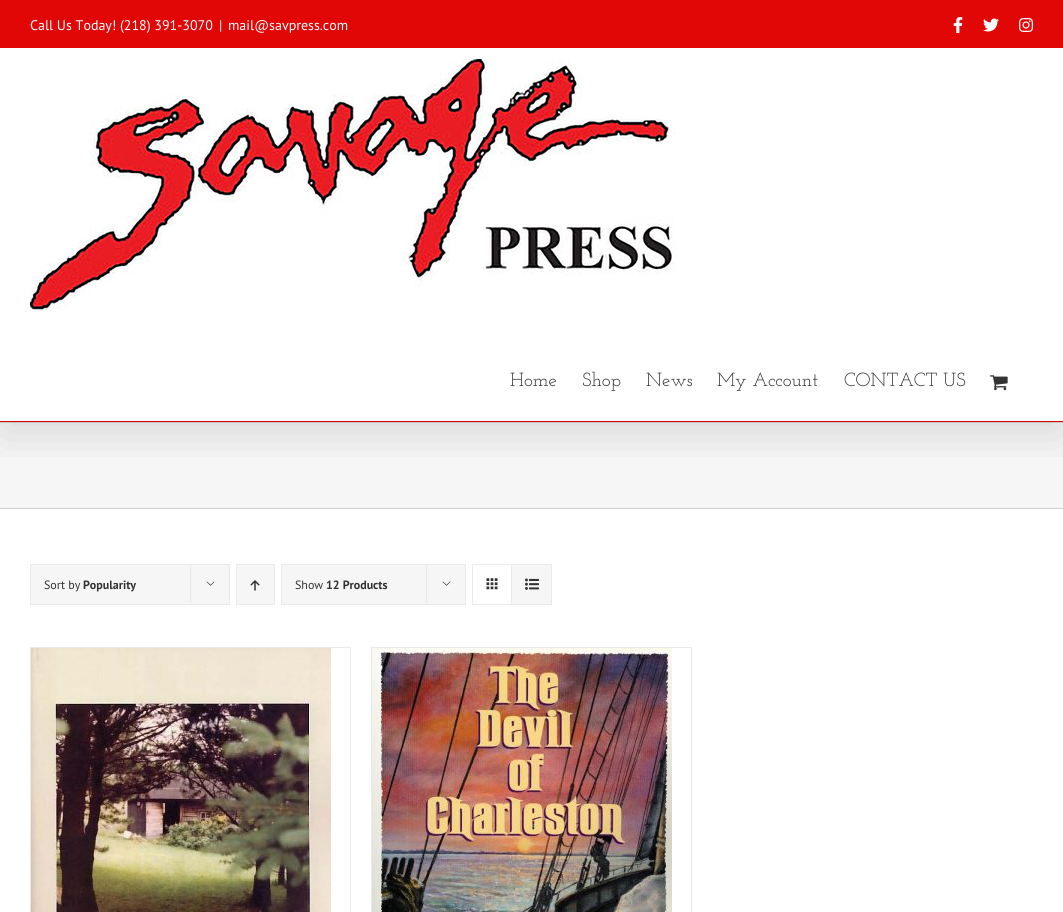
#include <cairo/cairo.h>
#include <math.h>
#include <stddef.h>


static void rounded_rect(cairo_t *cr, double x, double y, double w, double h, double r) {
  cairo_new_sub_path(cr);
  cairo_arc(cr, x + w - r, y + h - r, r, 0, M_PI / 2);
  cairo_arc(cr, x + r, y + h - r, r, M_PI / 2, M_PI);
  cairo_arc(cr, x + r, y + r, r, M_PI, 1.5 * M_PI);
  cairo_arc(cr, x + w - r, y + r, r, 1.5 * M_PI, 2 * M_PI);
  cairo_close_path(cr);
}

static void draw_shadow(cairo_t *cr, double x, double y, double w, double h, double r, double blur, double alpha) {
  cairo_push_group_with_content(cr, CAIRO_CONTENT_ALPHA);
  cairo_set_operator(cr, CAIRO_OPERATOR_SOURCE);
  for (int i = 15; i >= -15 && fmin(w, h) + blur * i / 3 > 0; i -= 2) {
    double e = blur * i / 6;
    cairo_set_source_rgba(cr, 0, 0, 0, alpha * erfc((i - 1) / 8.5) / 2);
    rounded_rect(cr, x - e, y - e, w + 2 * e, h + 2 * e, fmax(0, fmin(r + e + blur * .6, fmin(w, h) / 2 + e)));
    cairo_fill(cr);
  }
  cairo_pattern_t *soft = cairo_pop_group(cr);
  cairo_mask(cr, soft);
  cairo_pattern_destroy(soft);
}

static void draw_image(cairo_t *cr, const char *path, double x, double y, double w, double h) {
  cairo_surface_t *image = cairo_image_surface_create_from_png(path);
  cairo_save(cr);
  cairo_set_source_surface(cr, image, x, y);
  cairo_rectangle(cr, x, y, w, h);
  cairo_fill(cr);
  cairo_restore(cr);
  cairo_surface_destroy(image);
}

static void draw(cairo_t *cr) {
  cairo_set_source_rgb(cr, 1, 1, 1);
  cairo_paint(cr);
  cairo_set_source_rgb(cr, 246 / 255.0, 246 / 255.0, 246 / 255.0);
  cairo_rectangle(cr, 0, 423, 1063, 85);
  cairo_fill(cr);
  cairo_set_source_rgb(cr, 210 / 255.0, 211 / 255.0, 212 / 255.0);
  cairo_rectangle(cr, 0, 422, 1063, 1);
  cairo_fill(cr);
  cairo_save(cr);
  cairo_rectangle(cr, 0, 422, 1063, 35);
  cairo_clip(cr);
  cairo_set_source_rgb(cr, 0, 0, 0);
  draw_shadow(cr, 2, 12, 1059, 418, 0, 25, 0.14);
  cairo_restore(cr);
  cairo_set_source_rgb(cr, 225 / 255.0, 7 / 255.0, 7 / 255.0);
  cairo_rectangle(cr, 0, 0, 1063, 48);
  cairo_fill(cr);
  draw_image(cr, "images/1.png", 953, 17, 10, 16);
  draw_image(cr, "images/2.png", 983, 18, 16, 14);
  draw_image(cr, "images/3.png", 1019, 18, 15, 14);
  cairo_rectangle(cr, 0, 421, 1063, 1);
  cairo_fill(cr);
  draw_image(cr, "images/4.png", 30, 59, 646, 254);
  draw_image(cr, "images/5.png", 990, 375, 18, 16);
  cairo_set_source_rgb(cr, 210 / 255.0, 211 / 255.0, 212 / 255.0);
  cairo_rectangle(cr, 0, 508, 1063, 1);
  cairo_fill(cr);
  cairo_set_source_rgb(cr, 246 / 255.0, 246 / 255.0, 246 / 255.0);
  cairo_rectangle(cr, 30.5, 564.5, 199, 40);
  cairo_fill_preserve(cr);
  cairo_set_source_rgb(cr, 235 / 255.0, 234 / 255.0, 234 / 255.0);
  cairo_set_line_width(cr, 1);
  cairo_stroke(cr);
  cairo_rectangle(cr, 190, 564, 1, 39);
  cairo_fill(cr);
  draw_image(cr, "images/6.png", 206, 581, 9, 5);
  cairo_set_source_rgb(cr, 246 / 255.0, 246 / 255.0, 246 / 255.0);
  cairo_rectangle(cr, 236.5, 564.5, 38, 40);
  cairo_fill_preserve(cr);
  cairo_set_source_rgb(cr, 235 / 255.0, 234 / 255.0, 234 / 255.0);
  cairo_stroke(cr);
  draw_image(cr, "images/7.png", 250, 580, 10, 11);
  cairo_set_source_rgb(cr, 246 / 255.0, 246 / 255.0, 246 / 255.0);
  cairo_rectangle(cr, 281.5, 564.5, 184, 40);
  cairo_fill_preserve(cr);
  cairo_set_source_rgb(cr, 235 / 255.0, 234 / 255.0, 234 / 255.0);
  cairo_stroke(cr);
  cairo_rectangle(cr, 426, 564, 1, 39);
  cairo_fill(cr);
  draw_image(cr, "images/6.png", 442, 581, 9, 5);
  cairo_rectangle(cr, 472.5, 564.5, 79, 40);
  cairo_stroke(cr);
  cairo_rectangle(cr, 511, 565, 1, 39);
  cairo_fill(cr);
  draw_image(cr, "images/8.png", 486, 578, 12, 12);
  cairo_set_source_rgb(cr, 246 / 255.0, 246 / 255.0, 246 / 255.0);
  cairo_rectangle(cr, 512, 565, 39, 39);
  cairo_fill(cr);
  draw_image(cr, "images/9.png", 525, 578, 14, 12);
  cairo_set_source_rgb(cr, 235 / 255.0, 234 / 255.0, 234 / 255.0);
  cairo_rectangle(cr, 30, 647, 321, 1);
  cairo_fill(cr);
  cairo_rectangle(cr, 350, 647, 1, 265);
  cairo_fill(cr);
  cairo_rectangle(cr, 30, 647, 1, 265);
  cairo_fill(cr);
  draw_image(cr, "images/10.png", 31, 648, 300, 264);
  cairo_rectangle(cr, 371, 647, 321, 1);
  cairo_fill(cr);
  cairo_rectangle(cr, 691, 647, 1, 265);
  cairo_fill(cr);
  cairo_rectangle(cr, 371, 647, 1, 265);
  cairo_fill(cr);
  draw_image(cr, "images/11.png", 372, 648, 300, 264);
  cairo_select_font_face(cr, "PT Sans", CAIRO_FONT_SLANT_NORMAL, CAIRO_FONT_WEIGHT_NORMAL);
  cairo_set_font_size(cr, 14);
  cairo_set_source_rgb(cr, 1, 1, 1);
  cairo_move_to(cr, 30, 30);
  cairo_show_text(cr, "Call Us Today! (218) 391-3070");
  cairo_move_to(cr, 219, 30);
  cairo_show_text(cr, "|");
  cairo_move_to(cr, 228, 30);
  cairo_show_text(cr, "mail@savpress.com");
  cairo_select_font_face(cr, "Josefin Slab", CAIRO_FONT_SLANT_NORMAL, CAIRO_FONT_WEIGHT_NORMAL);
  cairo_set_font_size(cr, 19);
  cairo_set_source_rgb(cr, 51 / 255.0, 51 / 255.0, 51 / 255.0);
  cairo_move_to(cr, 510, 386);
  cairo_show_text(cr, "Home");
  cairo_move_to(cr, 582, 386);
  cairo_show_text(cr, "Shop");
  cairo_move_to(cr, 646, 386);
  cairo_show_text(cr, "News");
  cairo_move_to(cr, 717, 386);
  cairo_show_text(cr, "My Account");
  cairo_move_to(cr, 844, 386);
  cairo_show_text(cr, "CONTACT US");
  cairo_select_font_face(cr, "PT Sans", CAIRO_FONT_SLANT_NORMAL, CAIRO_FONT_WEIGHT_NORMAL);
  cairo_set_font_size(cr, 12);
  cairo_move_to(cr, 44, 589);
  cairo_show_text(cr, "Sort by");
  cairo_select_font_face(cr, "PT Sans", CAIRO_FONT_SLANT_NORMAL, CAIRO_FONT_WEIGHT_BOLD);
  cairo_move_to(cr, 83, 589);
  cairo_show_text(cr, "Popularity");
  cairo_select_font_face(cr, "PT Sans", CAIRO_FONT_SLANT_NORMAL, CAIRO_FONT_WEIGHT_NORMAL);
  cairo_move_to(cr, 295, 589);
  cairo_show_text(cr, "Show");
  cairo_select_font_face(cr, "PT Sans", CAIRO_FONT_SLANT_NORMAL, CAIRO_FONT_WEIGHT_BOLD);
  cairo_move_to(cr, 326, 589);
  cairo_show_text(cr, "12 Products");
}

int main(void) {
  cairo_surface_t *surface = cairo_image_surface_create(CAIRO_FORMAT_RGB24, 1063, 912);
  cairo_t *cr = cairo_create(surface);
  cairo_font_options_t *options = cairo_font_options_create();
  cairo_font_options_set_hint_metrics(options, CAIRO_HINT_METRICS_OFF);
  cairo_font_options_set_hint_style(options, CAIRO_HINT_STYLE_NONE);
  cairo_set_font_options(cr, options);
  cairo_set_miter_limit(cr, 4);
  draw(cr);
  cairo_surface_write_to_png(surface, "out.png");
  cairo_font_options_destroy(options);
  cairo_destroy(cr);
  cairo_surface_destroy(surface);
  return 0;
}
